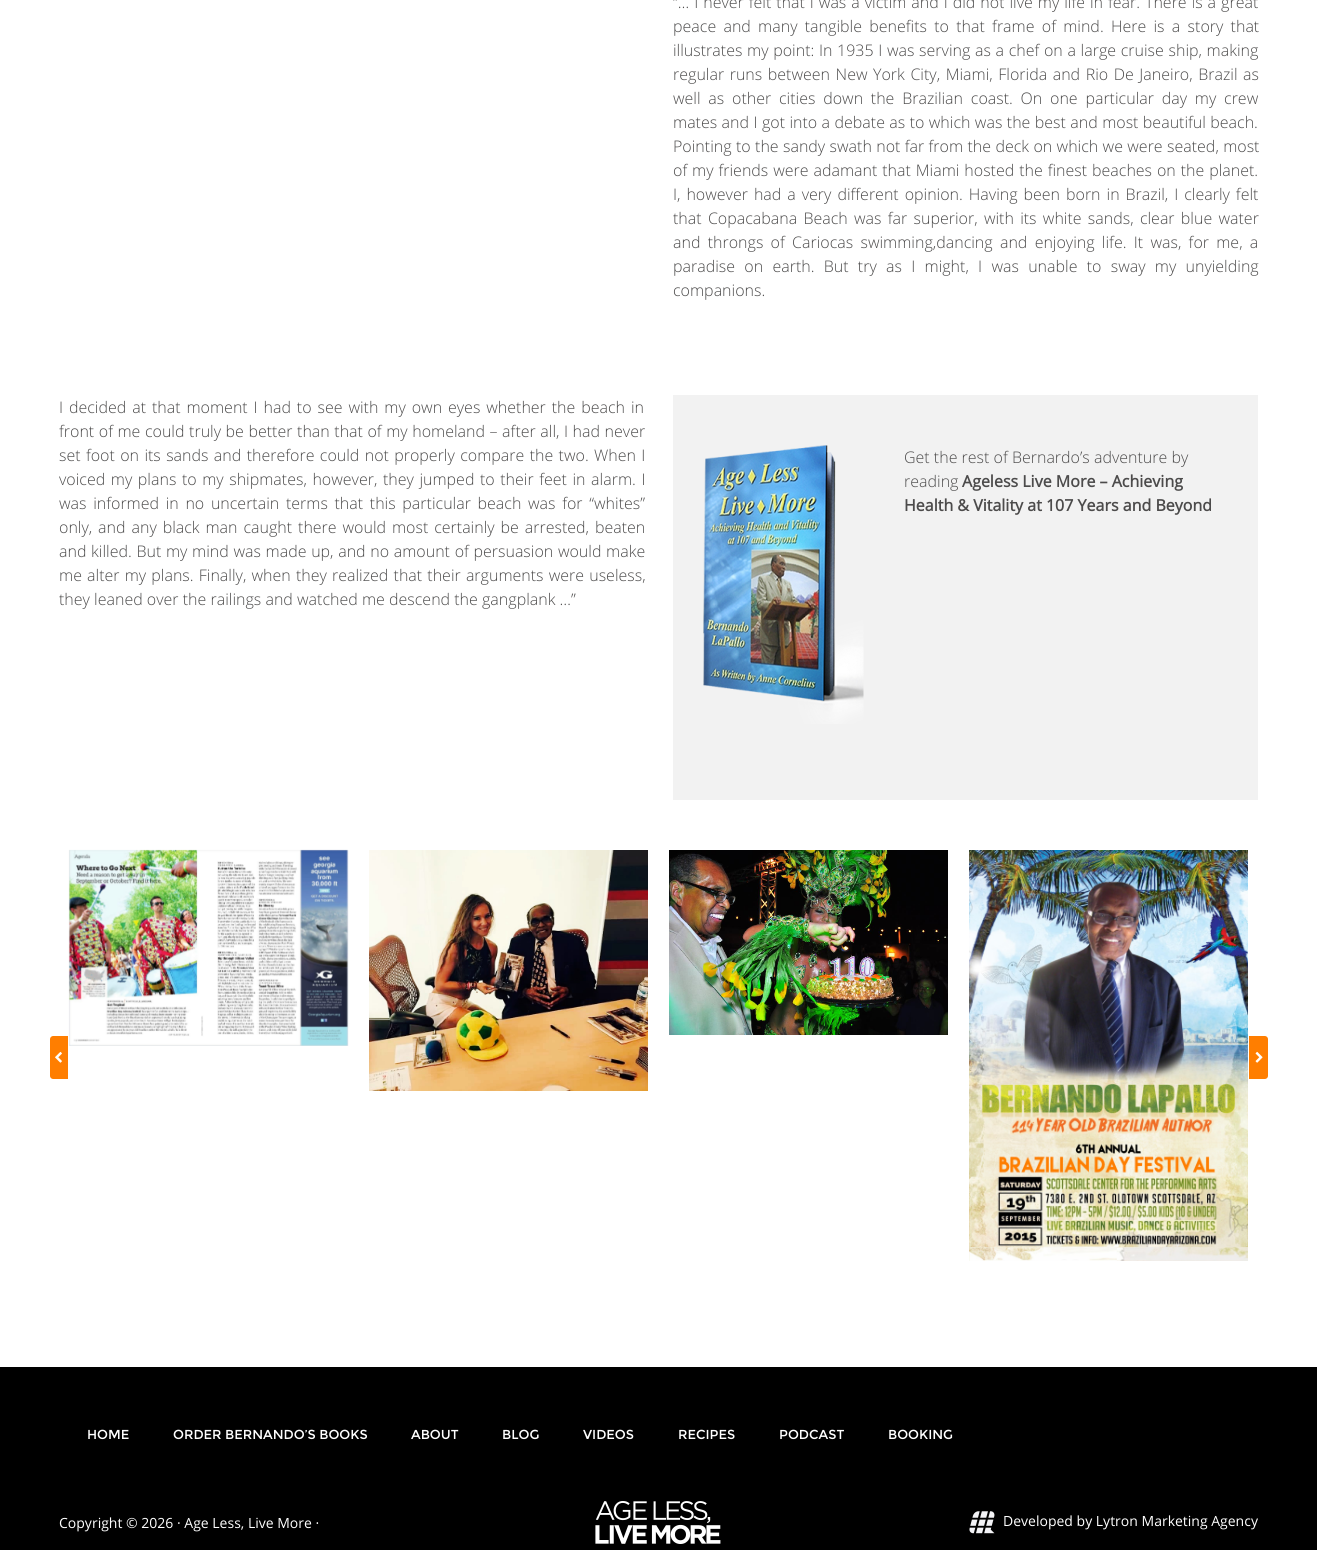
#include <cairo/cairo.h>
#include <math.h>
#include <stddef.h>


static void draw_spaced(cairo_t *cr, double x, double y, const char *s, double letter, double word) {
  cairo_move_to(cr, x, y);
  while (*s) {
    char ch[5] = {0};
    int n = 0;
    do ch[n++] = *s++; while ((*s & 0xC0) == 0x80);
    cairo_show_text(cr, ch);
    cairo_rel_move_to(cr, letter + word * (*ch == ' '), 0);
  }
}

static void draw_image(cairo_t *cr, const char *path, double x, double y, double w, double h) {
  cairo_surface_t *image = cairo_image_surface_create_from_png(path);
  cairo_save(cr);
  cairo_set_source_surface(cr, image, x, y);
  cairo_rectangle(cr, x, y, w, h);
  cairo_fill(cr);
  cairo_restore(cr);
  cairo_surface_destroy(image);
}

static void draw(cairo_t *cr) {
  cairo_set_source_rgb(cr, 1, 1, 1);
  cairo_paint(cr);
  cairo_set_source_rgb(cr, 242 / 255.0, 242 / 255.0, 242 / 255.0);
  cairo_rectangle(cr, 673, 395, 585, 405);
  cairo_fill(cr);
  draw_image(cr, "images/1.png", 703, 445, 161, 279);
  draw_image(cr, "images/2.png", 68, 849, 281, 197);
  draw_image(cr, "images/3.png", 369, 850, 279, 241);
  draw_image(cr, "images/4.png", 669, 850, 279, 185);
  draw_image(cr, "images/5.png", 969, 850, 279, 411);
  cairo_set_source_rgb(cr, 1, 126 / 255.0, 0);
  cairo_new_path(cr);
  cairo_move_to(cr, 53, 1036);
  cairo_line_to(cr, 68, 1036);
  cairo_line_to(cr, 68, 1079);
  cairo_line_to(cr, 53, 1079);
  cairo_curve_to(cr, 51.5, 1079, 50, 1077.5, 50, 1076);
  cairo_line_to(cr, 50, 1039);
  cairo_curve_to(cr, 50, 1037.5, 51.5, 1036, 53, 1036);
  cairo_close_path(cr);
  cairo_fill(cr);
  draw_image(cr, "images/6.png", 55, 1051, 7, 12);
  cairo_new_path(cr);
  cairo_move_to(cr, 1249, 1036);
  cairo_line_to(cr, 1265, 1036);
  cairo_curve_to(cr, 1266.5, 1036, 1268, 1037.5, 1268, 1039);
  cairo_line_to(cr, 1268, 1076);
  cairo_curve_to(cr, 1268, 1077.5, 1266.5, 1079, 1265, 1079);
  cairo_line_to(cr, 1249, 1079);
  cairo_close_path(cr);
  cairo_fill(cr);
  draw_image(cr, "images/7.png", 1255, 1051, 8, 12);
  cairo_set_source_rgb(cr, 0, 0, 0);
  cairo_rectangle(cr, 0, 1367, 1317, 183);
  cairo_fill(cr);
  draw_image(cr, "images/8.png", 595, 1501, 126, 43);
  draw_image(cr, "images/9.png", 969, 1511, 26, 23);
  cairo_select_font_face(cr, "Open Sans Light", CAIRO_FONT_SLANT_NORMAL, CAIRO_FONT_WEIGHT_NORMAL);
  cairo_set_font_size(cr, 16);
  cairo_set_source_rgb(cr, 76 / 255.0, 75 / 255.0, 75 / 255.0);
  draw_spaced(cr, 673, 8, "“… I never felt that I was a victim and I did not live my life in fear. There is a great", 0, 0.8);
  draw_spaced(cr, 673, 32, "peace and many tangible benefits to that frame of mind. Here is a story that", 0, 3.1);
  draw_spaced(cr, 673, 56, "illustrates my point: In 1935 I was serving as a chef on a large cruise ship, making", 0, 0.5);
  draw_spaced(cr, 673, 80, "regular runs between New York City, Miami, Florida and Rio De Janeiro, Brazil as", 0, 1.4);
  draw_spaced(cr, 673, 104, "well as other cities down the Brazilian coast. On one particular day my crew", 0, 3.6);
  draw_spaced(cr, 673, 128, "mates and I got into a debate as to which was the best and most beautiful beach.", 0, 0.25);
  draw_spaced(cr, 673, 152, "Pointing to the sandy swath not far from the deck on which we were seated, most", 0, 0.2);
  draw_spaced(cr, 673, 176, "of my friends were adamant that Miami hosted the finest beaches on the planet.", 0, 0.75);
  draw_spaced(cr, 673, 200, "I, however had a very different opinion. Having been born in Brazil, I clearly felt", 0, 1.8);
  draw_spaced(cr, 673, 224, "that Copacabana Beach was far superior, with its white sands, clear blue water", 0, 2.1);
  draw_spaced(cr, 673, 248, "and throngs of Cariocas swimming,dancing and enjoying life. It was, for me, a", 0, 3.1);
  draw_spaced(cr, 673, 272, "paradise on earth. But try as I might, I was unable to sway my unyielding", 0, 5.1);
  cairo_move_to(cr, 673, 296);
  cairo_show_text(cr, "companions.");
  draw_spaced(cr, 59, 413, "I decided at that moment I had to see with my own eyes whether the beach in", 0, 1.75);
  draw_spaced(cr, 59, 437, "front of me could truly be better than that of my homeland – after all, I had never", 0, 0.4);
  draw_spaced(cr, 59, 461, "set foot on its sands and therefore could not properly compare the two. When I", 0, 1.2);
  draw_spaced(cr, 59, 485, "voiced my plans to my shipmates, however, they jumped to their feet in alarm. I", 0, 1.4);
  draw_spaced(cr, 59, 509, "was informed in no uncertain terms that this particular beach was for “whites”", 0, 2.5);
  draw_spaced(cr, 59, 533, "only, and any black man caught there would most certainly be arrested, beaten", 0, 1.75);
  draw_spaced(cr, 59, 557, "and killed. But my mind was made up, and no amount of persuasion would make", 0, 0.5);
  draw_spaced(cr, 59, 581, "me alter my plans. Finally, when they realized that their arguments were useless,", 0, 1);
  cairo_move_to(cr, 59, 605);
  cairo_show_text(cr, "they leaned over the railings and watched me descend the gangplank …”");
  cairo_move_to(cr, 904, 463);
  cairo_show_text(cr, "Get the rest of Bernardo’s adventure by");
  cairo_move_to(cr, 904, 487);
  cairo_show_text(cr, "reading");
  cairo_select_font_face(cr, "Open Sans", CAIRO_FONT_SLANT_NORMAL, CAIRO_FONT_WEIGHT_BOLD);
  cairo_move_to(cr, 962, 487);
  cairo_show_text(cr, "Ageless Live More – Achieving");
  cairo_move_to(cr, 904, 511);
  cairo_show_text(cr, "Health & Vitality at 107 Years and Beyond");
  cairo_select_font_face(cr, "Montserrat", CAIRO_FONT_SLANT_NORMAL, CAIRO_FONT_WEIGHT_NORMAL);
  cairo_set_font_size(cr, 13);
  cairo_set_source_rgb(cr, 1, 1, 1);
  cairo_move_to(cr, 87, 1439);
  cairo_show_text(cr, "HOME");
  cairo_move_to(cr, 173, 1439);
  cairo_show_text(cr, "ORDER BERNANDO’S BOOKS");
  cairo_move_to(cr, 411, 1439);
  cairo_show_text(cr, "ABOUT");
  cairo_move_to(cr, 502, 1439);
  cairo_show_text(cr, "BLOG");
  cairo_move_to(cr, 583, 1439);
  cairo_show_text(cr, "VIDEOS");
  cairo_move_to(cr, 678, 1439);
  cairo_show_text(cr, "RECIPES");
  cairo_move_to(cr, 779, 1439);
  cairo_show_text(cr, "PODCAST");
  cairo_move_to(cr, 888, 1439);
  cairo_show_text(cr, "BOOKING");
  cairo_select_font_face(cr, "Open Sans", CAIRO_FONT_SLANT_NORMAL, CAIRO_FONT_WEIGHT_NORMAL);
  cairo_set_font_size(cr, 14);
  cairo_move_to(cr, 59, 1528);
  cairo_show_text(cr, "Copyright © 2026 · Age Less, Live More ·");
  cairo_move_to(cr, 1003, 1526);
  cairo_show_text(cr, "Developed by Lytron Marketing Agency");
}

int main(void) {
  cairo_surface_t *surface = cairo_image_surface_create(CAIRO_FORMAT_RGB24, 1317, 1550);
  cairo_t *cr = cairo_create(surface);
  cairo_font_options_t *options = cairo_font_options_create();
  cairo_font_options_set_hint_metrics(options, CAIRO_HINT_METRICS_OFF);
  cairo_font_options_set_hint_style(options, CAIRO_HINT_STYLE_NONE);
  cairo_set_font_options(cr, options);
  cairo_set_miter_limit(cr, 4);
  draw(cr);
  cairo_surface_write_to_png(surface, "out.png");
  cairo_font_options_destroy(options);
  cairo_destroy(cr);
  cairo_surface_destroy(surface);
  return 0;
}
